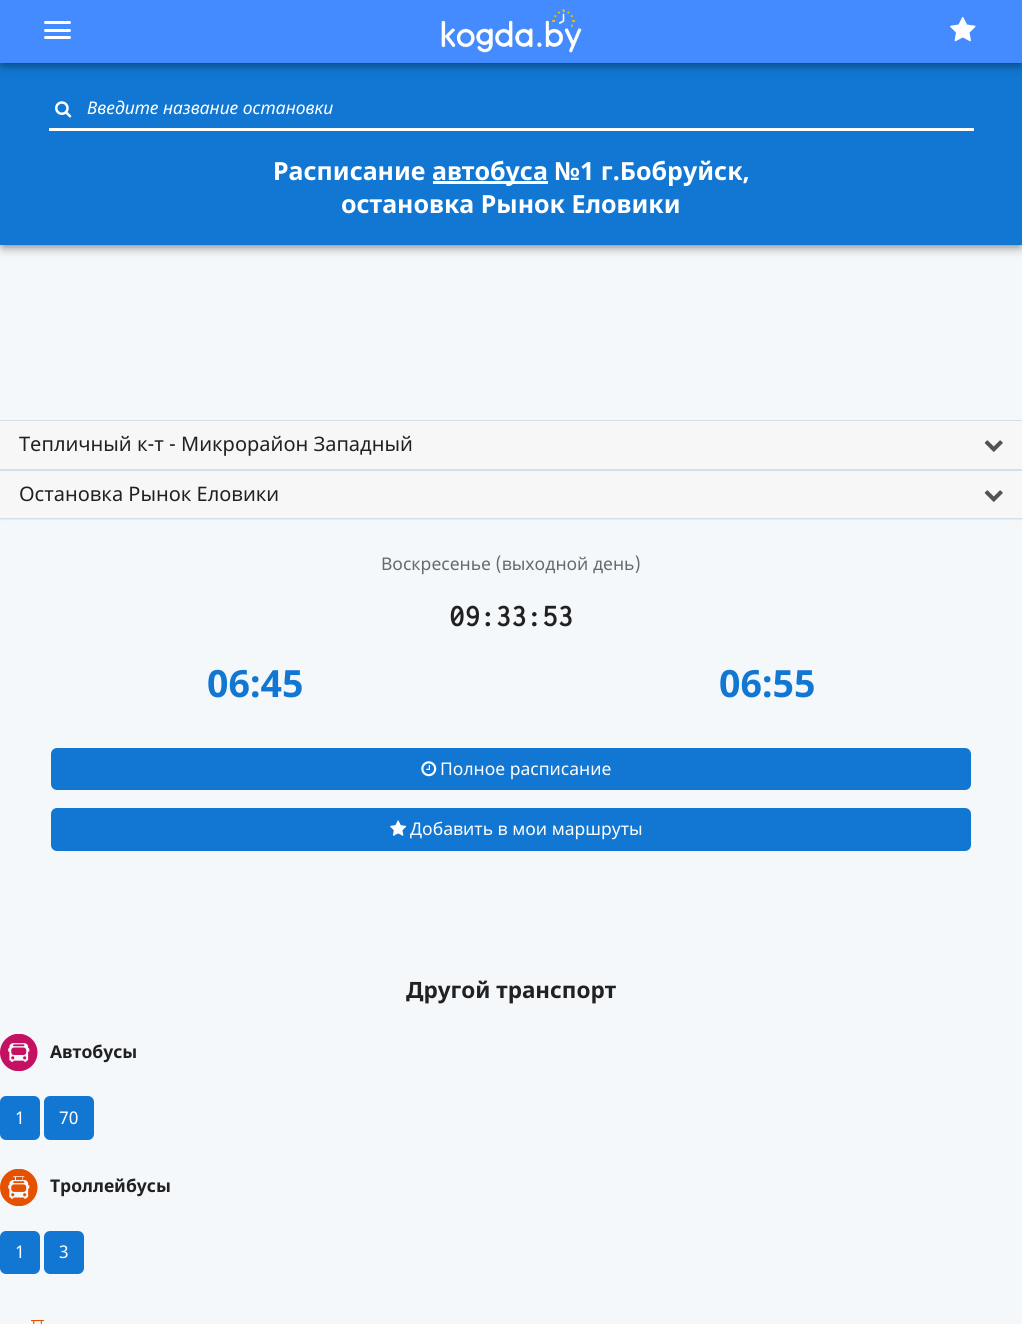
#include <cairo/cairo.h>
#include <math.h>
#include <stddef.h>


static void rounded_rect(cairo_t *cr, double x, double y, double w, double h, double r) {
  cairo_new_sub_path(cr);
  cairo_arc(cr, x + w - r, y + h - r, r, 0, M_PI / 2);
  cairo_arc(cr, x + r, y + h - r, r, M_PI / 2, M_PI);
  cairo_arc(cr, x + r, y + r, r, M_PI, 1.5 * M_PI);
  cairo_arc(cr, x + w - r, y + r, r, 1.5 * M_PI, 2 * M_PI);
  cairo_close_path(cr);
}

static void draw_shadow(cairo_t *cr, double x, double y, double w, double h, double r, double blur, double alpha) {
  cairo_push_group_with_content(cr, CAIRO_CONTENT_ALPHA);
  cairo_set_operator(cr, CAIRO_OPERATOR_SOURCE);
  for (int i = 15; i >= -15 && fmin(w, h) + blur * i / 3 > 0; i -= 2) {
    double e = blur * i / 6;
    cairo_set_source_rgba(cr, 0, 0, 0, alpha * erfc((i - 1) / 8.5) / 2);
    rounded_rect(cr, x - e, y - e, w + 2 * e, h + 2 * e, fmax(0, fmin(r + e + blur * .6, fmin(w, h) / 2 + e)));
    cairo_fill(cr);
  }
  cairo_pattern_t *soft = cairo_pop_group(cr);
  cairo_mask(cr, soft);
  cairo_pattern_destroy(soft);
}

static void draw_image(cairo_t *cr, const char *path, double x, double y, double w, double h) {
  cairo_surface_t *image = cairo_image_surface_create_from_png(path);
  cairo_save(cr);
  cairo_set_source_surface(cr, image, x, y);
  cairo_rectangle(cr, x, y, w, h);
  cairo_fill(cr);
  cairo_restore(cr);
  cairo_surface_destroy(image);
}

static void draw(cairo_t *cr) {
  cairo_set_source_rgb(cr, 245 / 255.0, 248 / 255.0, 250 / 255.0);
  cairo_paint(cr);
  cairo_set_source_rgb(cr, 0, 0, 0);
  draw_shadow(cr, 3, 160, 1017, 85, 0, 6, 0.65);
  cairo_set_source_rgb(cr, 18 / 255.0, 119 / 255.0, 211 / 255.0);
  cairo_rectangle(cr, 0, 63, 1022, 182);
  cairo_fill(cr);
  cairo_set_source_rgb(cr, 0, 0, 0);
  draw_shadow(cr, 3, 5, 1017, 58, 0, 6, 0.65);
  cairo_set_source_rgb(cr, 67 / 255.0, 139 / 255.0, 1);
  cairo_rectangle(cr, 0, 0, 1022, 63);
  cairo_fill(cr);
  cairo_set_source_rgb(cr, 1, 1, 1);
  rounded_rect(cr, 44, 21, 27, 3, 1.5);
  cairo_fill(cr);
  rounded_rect(cr, 44, 29, 27, 3, 1.5);
  cairo_fill(cr);
  rounded_rect(cr, 44, 36, 27, 3, 1.5);
  cairo_fill(cr);
  draw_image(cr, "images/1.png", 441, 8, 141, 45);
  draw_image(cr, "images/2.png", 950, 17, 26, 25);
  draw_image(cr, "images/3.png", 55, 101, 17, 17);
  cairo_rectangle(cr, 49, 128, 925, 3);
  cairo_fill(cr);
  cairo_rectangle(cr, 433, 181, 115, 3);
  cairo_fill(cr);
  cairo_set_source_rgb(cr, 211 / 255.0, 224 / 255.0, 233 / 255.0);
  cairo_rectangle(cr, 0, 420, 1022, 1);
  cairo_fill(cr);
  cairo_rectangle(cr, 0, 469, 1022, 1);
  cairo_fill(cr);
  cairo_set_source_rgb(cr, 0, 0, 0);
  draw_shadow(cr, 0, 471, 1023, 49, 0, 0.5, 0.05);
  cairo_set_source_rgb(cr, 247 / 255.0, 247 / 255.0, 247 / 255.0);
  cairo_rectangle(cr, 0, 421, 1022, 48);
  cairo_fill(cr);
  draw_image(cr, "images/4.png", 984, 440, 19, 12);
  cairo_set_source_rgb(cr, 211 / 255.0, 224 / 255.0, 233 / 255.0);
  cairo_rectangle(cr, 0, 470, 1022, 1);
  cairo_fill(cr);
  cairo_rectangle(cr, 0, 518, 1022, 1);
  cairo_fill(cr);
  cairo_set_source_rgb(cr, 247 / 255.0, 247 / 255.0, 247 / 255.0);
  cairo_rectangle(cr, 0, 471, 1022, 47);
  cairo_fill(cr);
  draw_image(cr, "images/4.png", 984, 490, 19, 12);
  cairo_set_source_rgb(cr, 18 / 255.0, 119 / 255.0, 211 / 255.0);
  rounded_rect(cr, 51, 748, 920, 42, 6);
  cairo_fill(cr);
  draw_image(cr, "images/5.png", 421, 761, 16, 16);
  rounded_rect(cr, 51, 808, 920, 43, 6);
  cairo_fill(cr);
  draw_image(cr, "images/6.png", 390, 820, 17, 16);
  draw_image(cr, "images/7.png", 0, 1034, 38, 37);
  rounded_rect(cr, 0, 1096, 40, 44, 6);
  cairo_fill(cr);
  rounded_rect(cr, 44, 1096, 50, 44, 6);
  cairo_fill(cr);
  draw_image(cr, "images/8.png", 0, 1169, 38, 37);
  rounded_rect(cr, 0, 1231, 40, 43, 6);
  cairo_fill(cr);
  rounded_rect(cr, 44, 1231, 40, 43, 6);
  cairo_fill(cr);
  draw_image(cr, "images/9.png", 31, 1320, 13, 4);
  cairo_select_font_face(cr, "Noto Sans", CAIRO_FONT_SLANT_ITALIC, CAIRO_FONT_WEIGHT_NORMAL);
  cairo_set_font_size(cr, 17.5);
  cairo_set_source_rgb(cr, 1, 1, 1);
  cairo_move_to(cr, 87, 114);
  cairo_show_text(cr, "Введите название остановки");
  cairo_select_font_face(cr, "Noto Sans", CAIRO_FONT_SLANT_NORMAL, CAIRO_FONT_WEIGHT_BOLD);
  cairo_set_font_size(cr, 25);
  cairo_move_to(cr, 273, 180);
  cairo_show_text(cr, "Расписание");
  cairo_move_to(cr, 432, 180);
  cairo_show_text(cr, "автобуса №1 г.Бобруйск,");
  cairo_move_to(cr, 341, 213);
  cairo_show_text(cr, "остановка Рынок Еловики");
  cairo_select_font_face(cr, "Noto Sans", CAIRO_FONT_SLANT_NORMAL, CAIRO_FONT_WEIGHT_NORMAL);
  cairo_set_font_size(cr, 20);
  cairo_set_source_rgb(cr, 33 / 255.0, 33 / 255.0, 33 / 255.0);
  cairo_move_to(cr, 19, 451);
  cairo_show_text(cr, "Тепличный к-т - Микрорайон Западный");
  cairo_move_to(cr, 19, 501);
  cairo_show_text(cr, "Остановка Рынок Еловики");
  cairo_set_font_size(cr, 17.5);
  cairo_set_source_rgb(cr, 99 / 255.0, 107 / 255.0, 111 / 255.0);
  cairo_move_to(cr, 381, 570);
  cairo_show_text(cr, "Воскресенье (выходной день)");
  cairo_select_font_face(cr, "Inconsolata", CAIRO_FONT_SLANT_NORMAL, CAIRO_FONT_WEIGHT_BOLD);
  cairo_set_font_size(cr, 31);
  cairo_set_source_rgb(cr, 33 / 255.0, 33 / 255.0, 33 / 255.0);
  cairo_move_to(cr, 449, 626);
  cairo_show_text(cr, "09:33:53");
  cairo_select_font_face(cr, "Noto Sans", CAIRO_FONT_SLANT_NORMAL, CAIRO_FONT_WEIGHT_BOLD);
  cairo_set_font_size(cr, 37.5);
  cairo_set_source_rgb(cr, 18 / 255.0, 119 / 255.0, 211 / 255.0);
  cairo_move_to(cr, 207, 697);
  cairo_show_text(cr, "06:45");
  cairo_move_to(cr, 719, 697);
  cairo_show_text(cr, "06:55");
  cairo_select_font_face(cr, "Noto Sans", CAIRO_FONT_SLANT_NORMAL, CAIRO_FONT_WEIGHT_NORMAL);
  cairo_set_font_size(cr, 17.5);
  cairo_set_source_rgb(cr, 1, 1, 1);
  cairo_move_to(cr, 440, 775);
  cairo_show_text(cr, "Полное расписание");
  cairo_move_to(cr, 410, 835);
  cairo_show_text(cr, "Добавить в мои маршруты");
  cairo_select_font_face(cr, "Noto Sans", CAIRO_FONT_SLANT_NORMAL, CAIRO_FONT_WEIGHT_BOLD);
  cairo_set_font_size(cr, 22.5);
  cairo_set_source_rgb(cr, 33 / 255.0, 33 / 255.0, 33 / 255.0);
  cairo_move_to(cr, 406, 998);
  cairo_show_text(cr, "Другой транспорт");
  cairo_set_font_size(cr, 17.5);
  cairo_move_to(cr, 50, 1058);
  cairo_show_text(cr, "Автобусы");
  cairo_select_font_face(cr, "Noto Sans", CAIRO_FONT_SLANT_NORMAL, CAIRO_FONT_WEIGHT_NORMAL);
  cairo_set_source_rgb(cr, 1, 1, 1);
  cairo_move_to(cr, 15, 1124);
  cairo_show_text(cr, "1");
  cairo_move_to(cr, 59, 1124);
  cairo_show_text(cr, "70");
  cairo_select_font_face(cr, "Noto Sans", CAIRO_FONT_SLANT_NORMAL, CAIRO_FONT_WEIGHT_BOLD);
  cairo_set_source_rgb(cr, 33 / 255.0, 33 / 255.0, 33 / 255.0);
  cairo_move_to(cr, 50, 1192);
  cairo_show_text(cr, "Троллейбусы");
  cairo_select_font_face(cr, "Noto Sans", CAIRO_FONT_SLANT_NORMAL, CAIRO_FONT_WEIGHT_NORMAL);
  cairo_set_source_rgb(cr, 1, 1, 1);
  cairo_move_to(cr, 15, 1258);
  cairo_show_text(cr, "1");
  cairo_move_to(cr, 59, 1258);
  cairo_show_text(cr, "3");
}

int main(void) {
  cairo_surface_t *surface = cairo_image_surface_create(CAIRO_FORMAT_RGB24, 1022, 1324);
  cairo_t *cr = cairo_create(surface);
  cairo_font_options_t *options = cairo_font_options_create();
  cairo_font_options_set_hint_metrics(options, CAIRO_HINT_METRICS_OFF);
  cairo_font_options_set_hint_style(options, CAIRO_HINT_STYLE_NONE);
  cairo_set_font_options(cr, options);
  cairo_set_miter_limit(cr, 4);
  draw(cr);
  cairo_surface_write_to_png(surface, "out.png");
  cairo_font_options_destroy(options);
  cairo_destroy(cr);
  cairo_surface_destroy(surface);
  return 0;
}
